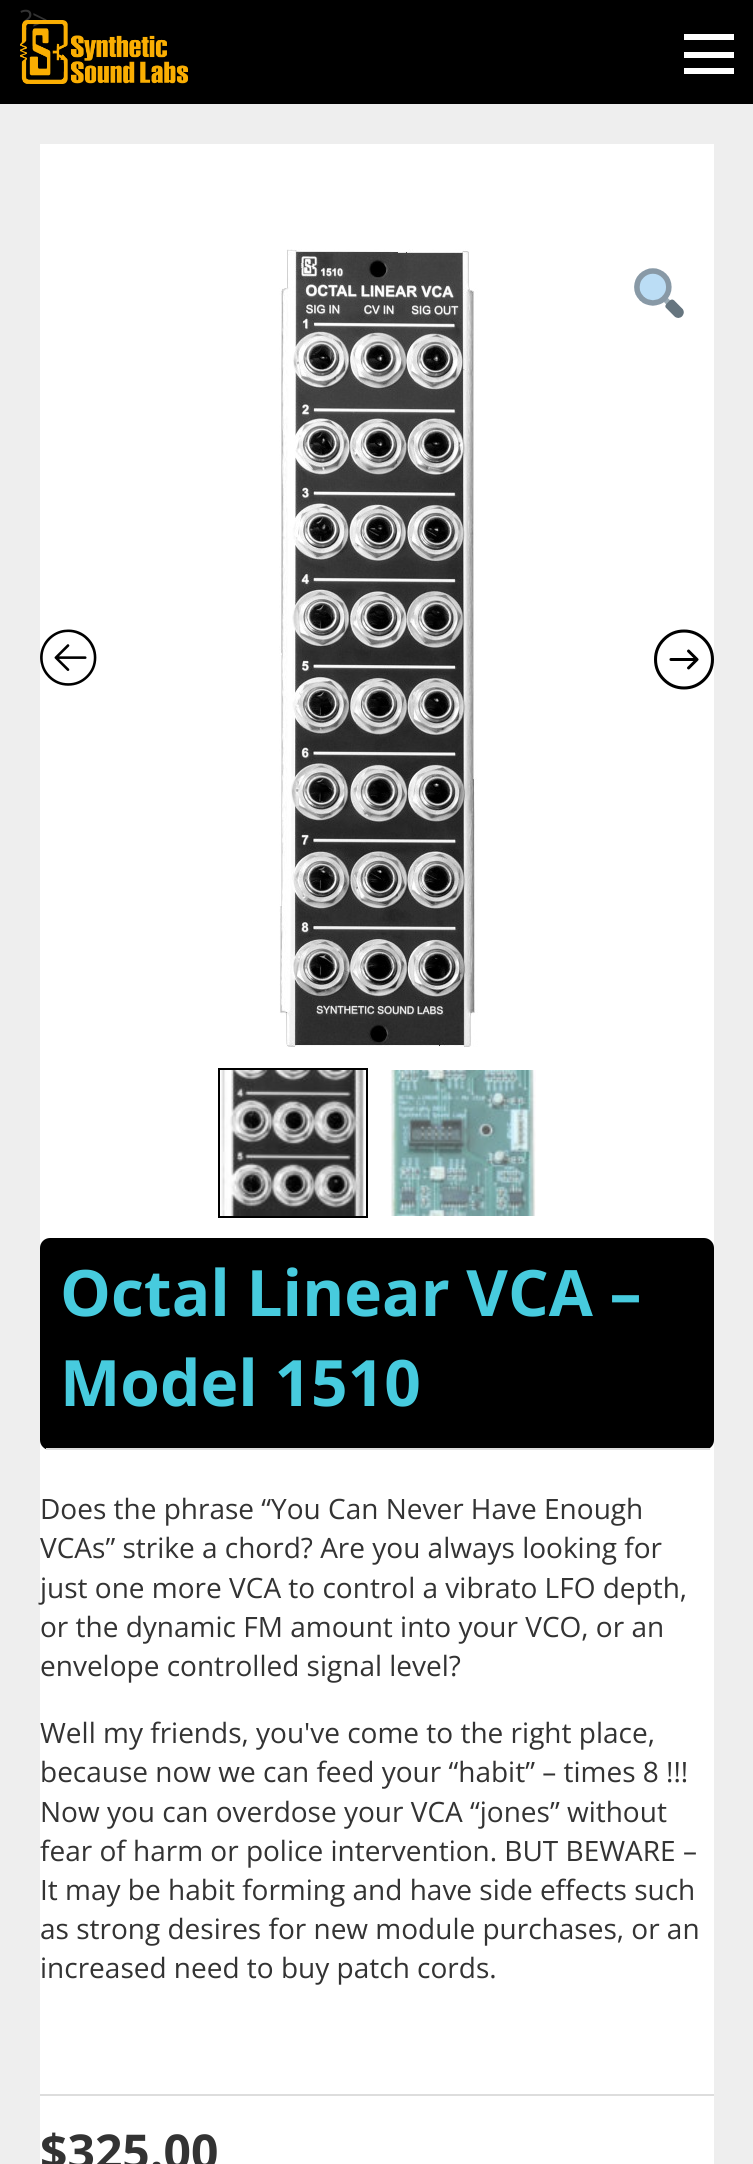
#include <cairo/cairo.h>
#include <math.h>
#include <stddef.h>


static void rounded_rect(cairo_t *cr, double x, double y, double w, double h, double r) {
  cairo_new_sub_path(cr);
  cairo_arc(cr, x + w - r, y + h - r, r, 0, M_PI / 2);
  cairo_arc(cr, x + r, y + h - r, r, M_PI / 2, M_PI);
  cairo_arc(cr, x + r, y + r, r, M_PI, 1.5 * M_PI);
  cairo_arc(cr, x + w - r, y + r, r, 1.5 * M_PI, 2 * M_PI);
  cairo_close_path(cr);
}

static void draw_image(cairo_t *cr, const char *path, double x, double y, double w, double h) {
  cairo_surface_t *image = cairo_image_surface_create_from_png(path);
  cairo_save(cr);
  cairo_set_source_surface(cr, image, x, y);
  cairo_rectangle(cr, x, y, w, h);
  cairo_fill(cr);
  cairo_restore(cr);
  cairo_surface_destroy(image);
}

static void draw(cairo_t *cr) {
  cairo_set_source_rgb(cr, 238 / 255.0, 238 / 255.0, 238 / 255.0);
  cairo_paint(cr);
  cairo_set_source_rgb(cr, 0, 0, 0);
  cairo_rectangle(cr, 0, 0, 753, 104);
  cairo_fill(cr);
  cairo_set_source_rgb(cr, 1, 1, 1);
  cairo_rectangle(cr, 684, 34, 50, 6);
  cairo_fill(cr);
  cairo_rectangle(cr, 684, 52, 50, 6);
  cairo_fill(cr);
  cairo_rectangle(cr, 684, 68, 50, 6);
  cairo_fill(cr);
  cairo_rectangle(cr, 40, 144, 674, 2020);
  cairo_fill(cr);
  draw_image(cr, "images/2.png", 40, 629, 57, 57);
  draw_image(cr, "images/3.png", 279, 249, 199, 798);
  draw_image(cr, "images/4.png", 634, 268, 50, 50);
  draw_image(cr, "images/5.png", 654, 629, 60, 61);
  cairo_rectangle(cr, 219, 1069, 148, 148);
  cairo_set_source_rgb(cr, 0, 0, 0);
  cairo_stroke(cr);
  draw_image(cr, "images/6.png", 221, 1070, 144, 146);
  draw_image(cr, "images/7.png", 390, 1070, 146, 146);
  rounded_rect(cr, 40, 1238, 674, 212, 10);
  cairo_fill(cr);
  cairo_set_source_rgb(cr, 221 / 255.0, 221 / 255.0, 221 / 255.0);
  cairo_rectangle(cr, 46, 1448, 664, 2);
  cairo_fill(cr);
  cairo_rectangle(cr, 40, 2094, 674, 2);
  cairo_fill(cr);
  cairo_select_font_face(cr, "Open Sans", CAIRO_FONT_SLANT_NORMAL, CAIRO_FONT_WEIGHT_NORMAL);
  cairo_set_font_size(cr, 28);
  cairo_set_source_rgb(cr, 51 / 255.0, 51 / 255.0, 51 / 255.0);
  cairo_move_to(cr, 20, 30);
  cairo_show_text(cr, "?>");
  draw_image(cr, "images/1.png", 20, 20, 168, 64);
  cairo_select_font_face(cr, "Open Sans", CAIRO_FONT_SLANT_NORMAL, CAIRO_FONT_WEIGHT_BOLD);
  cairo_set_font_size(cr, 64);
  cairo_set_source_rgb(cr, 71 / 255.0, 203 / 255.0, 222 / 255.0);
  cairo_move_to(cr, 60, 1316);
  cairo_show_text(cr, "Octal Linear VCA –");
  cairo_move_to(cr, 60, 1406);
  cairo_show_text(cr, "Model 1510");
  cairo_select_font_face(cr, "Open Sans", CAIRO_FONT_SLANT_NORMAL, CAIRO_FONT_WEIGHT_NORMAL);
  cairo_set_font_size(cr, 28);
  cairo_set_source_rgb(cr, 51 / 255.0, 51 / 255.0, 51 / 255.0);
  cairo_move_to(cr, 40, 1519);
  cairo_show_text(cr, "Does the phrase “You Can Never Have Enough");
  cairo_move_to(cr, 40, 1558);
  cairo_show_text(cr, "VCAs” strike a chord? Are you always looking for");
  cairo_move_to(cr, 40, 1598);
  cairo_show_text(cr, "just one more VCA to control a vibrato LFO depth,");
  cairo_move_to(cr, 40, 1637);
  cairo_show_text(cr, "or the dynamic FM amount into your VCO, or an");
  cairo_move_to(cr, 40, 1676);
  cairo_show_text(cr, "envelope controlled signal level?");
  cairo_move_to(cr, 40, 1743);
  cairo_show_text(cr, "Well my friends, you've come to the right place,");
  cairo_move_to(cr, 40, 1782);
  cairo_show_text(cr, "because now we can feed your “habit” – times 8 !!!");
  cairo_move_to(cr, 40, 1822);
  cairo_show_text(cr, "Now you can overdose your VCA “jones” without");
  cairo_move_to(cr, 40, 1861);
  cairo_show_text(cr, "fear of harm or police intervention. BUT BEWARE –");
  cairo_move_to(cr, 40, 1900);
  cairo_show_text(cr, "It may be habit forming and have side effects such");
  cairo_move_to(cr, 40, 1939);
  cairo_show_text(cr, "as strong desires for new module purchases, or an");
  cairo_move_to(cr, 40, 1978);
  cairo_show_text(cr, "increased need to buy patch cords.");
  cairo_select_font_face(cr, "Open Sans", CAIRO_FONT_SLANT_NORMAL, CAIRO_FONT_WEIGHT_BOLD);
  cairo_set_font_size(cr, 48);
  cairo_move_to(cr, 40, 2169);
  cairo_show_text(cr, "$325.00");
}

int main(void) {
  cairo_surface_t *surface = cairo_image_surface_create(CAIRO_FORMAT_RGB24, 753, 2164);
  cairo_t *cr = cairo_create(surface);
  cairo_font_options_t *options = cairo_font_options_create();
  cairo_font_options_set_hint_metrics(options, CAIRO_HINT_METRICS_OFF);
  cairo_font_options_set_hint_style(options, CAIRO_HINT_STYLE_NONE);
  cairo_set_font_options(cr, options);
  cairo_set_miter_limit(cr, 4);
  draw(cr);
  cairo_surface_write_to_png(surface, "out.png");
  cairo_font_options_destroy(options);
  cairo_destroy(cr);
  cairo_surface_destroy(surface);
  return 0;
}
